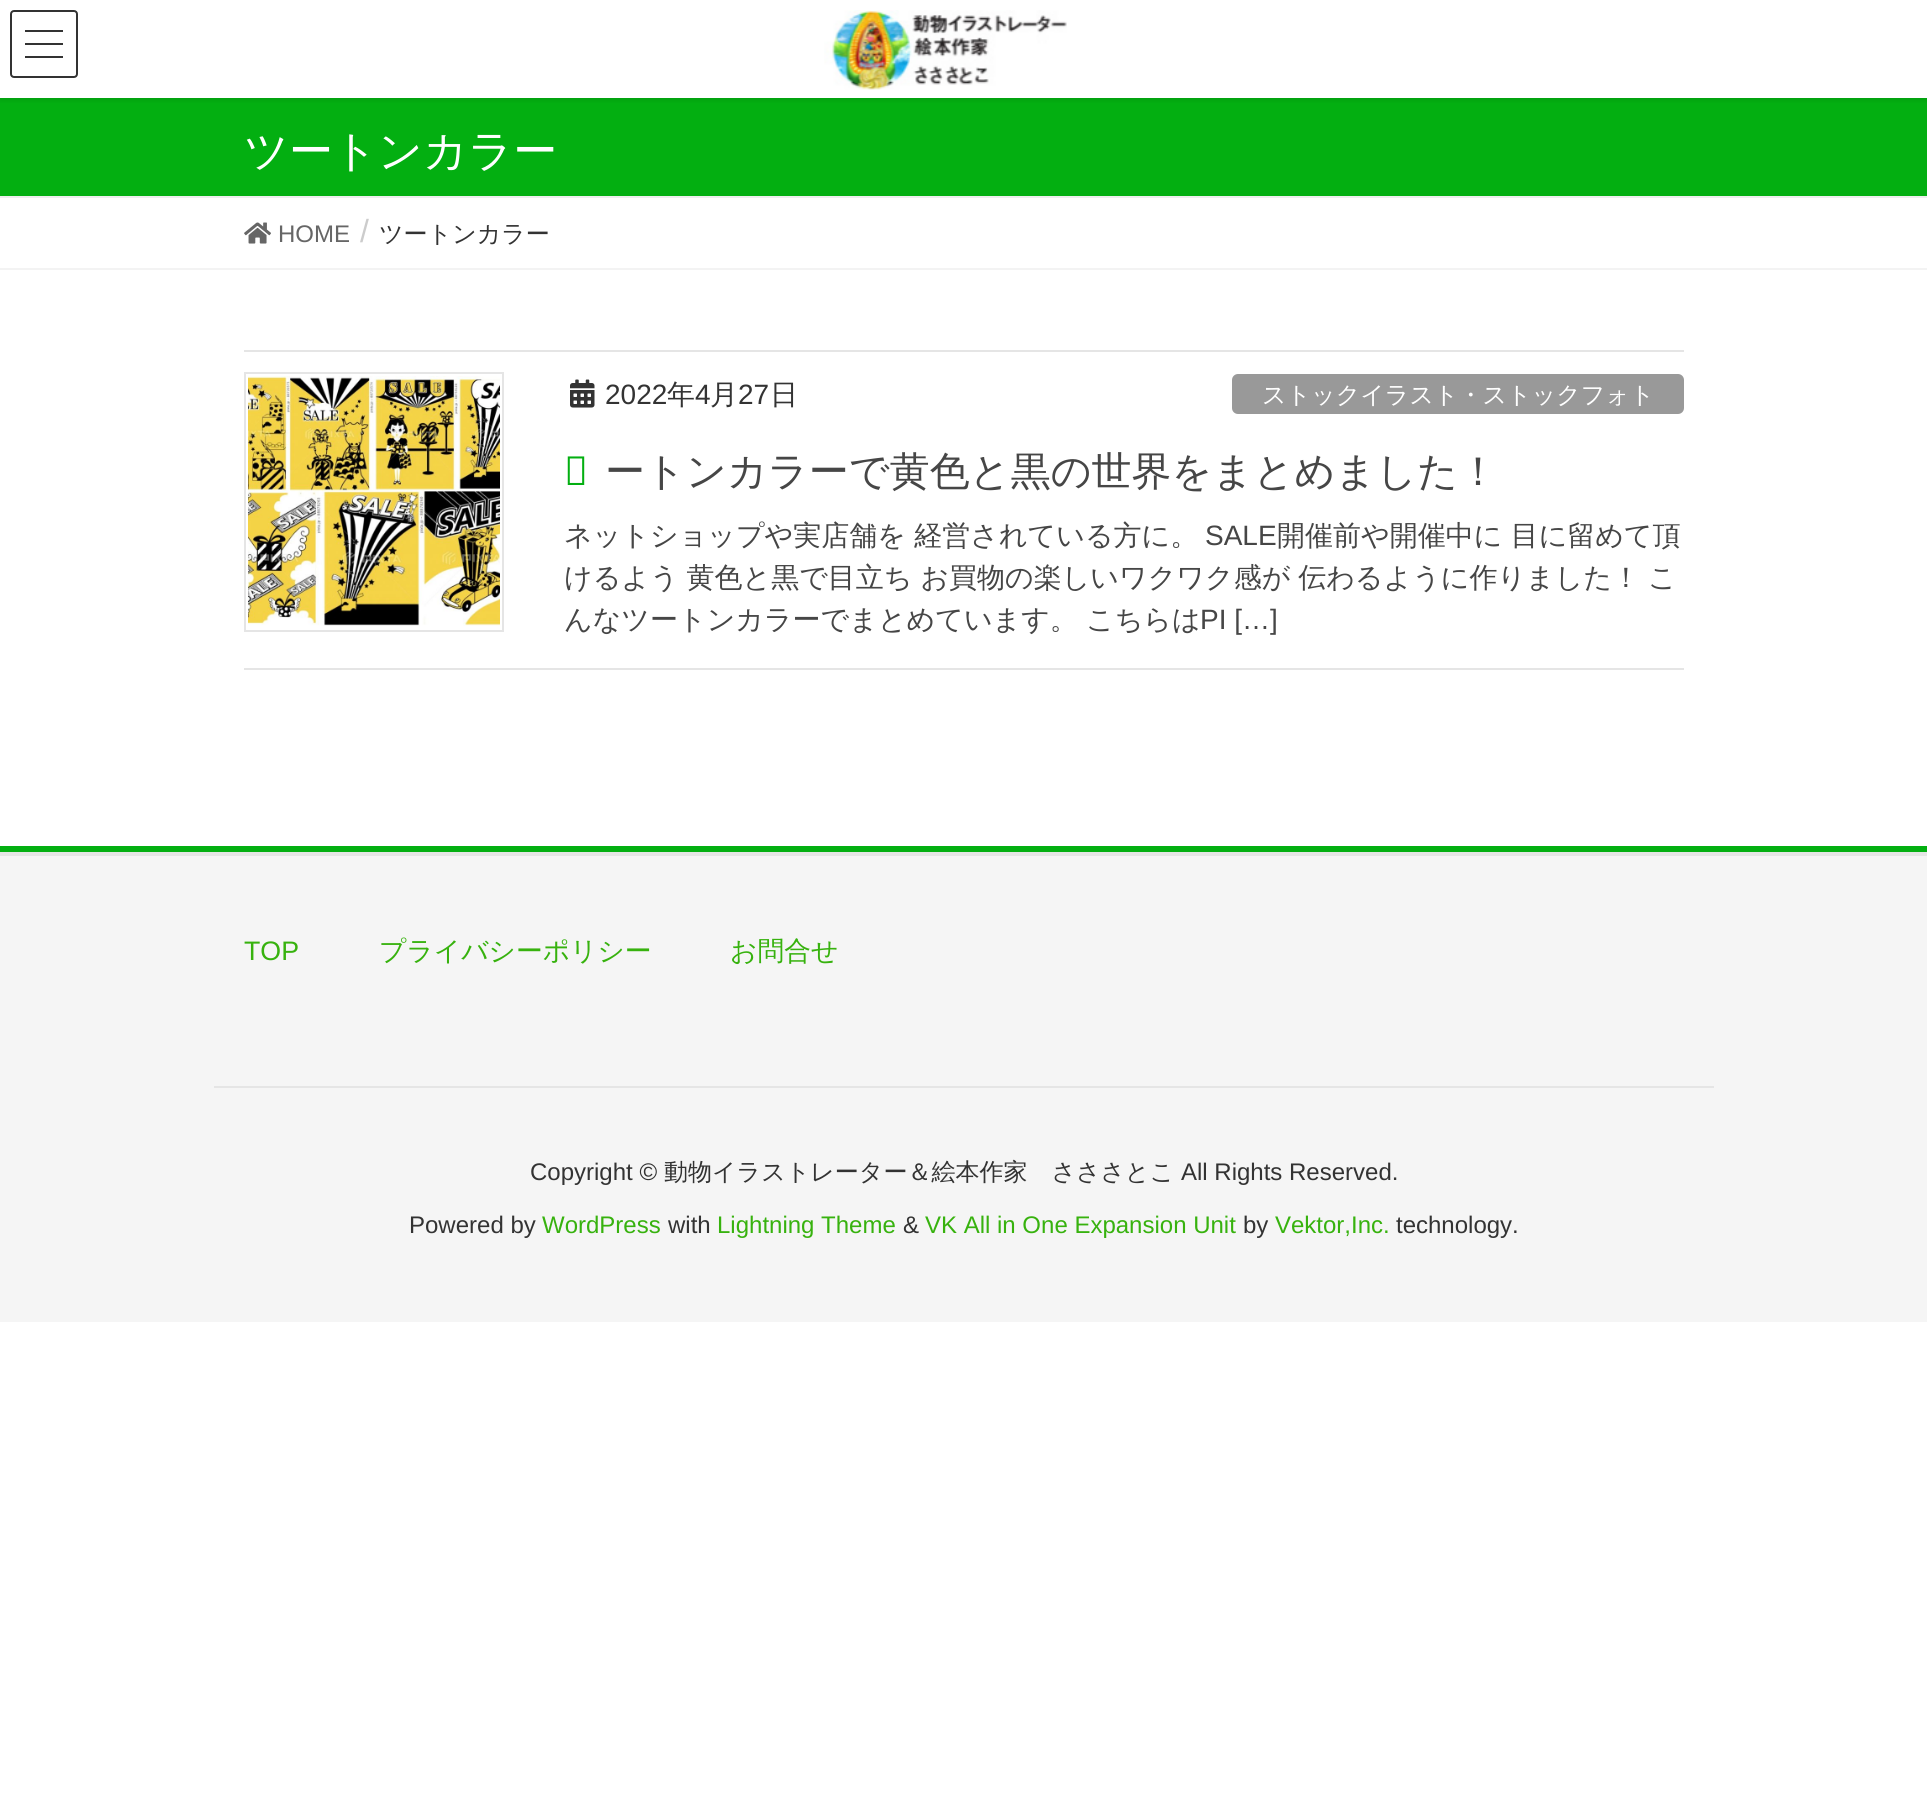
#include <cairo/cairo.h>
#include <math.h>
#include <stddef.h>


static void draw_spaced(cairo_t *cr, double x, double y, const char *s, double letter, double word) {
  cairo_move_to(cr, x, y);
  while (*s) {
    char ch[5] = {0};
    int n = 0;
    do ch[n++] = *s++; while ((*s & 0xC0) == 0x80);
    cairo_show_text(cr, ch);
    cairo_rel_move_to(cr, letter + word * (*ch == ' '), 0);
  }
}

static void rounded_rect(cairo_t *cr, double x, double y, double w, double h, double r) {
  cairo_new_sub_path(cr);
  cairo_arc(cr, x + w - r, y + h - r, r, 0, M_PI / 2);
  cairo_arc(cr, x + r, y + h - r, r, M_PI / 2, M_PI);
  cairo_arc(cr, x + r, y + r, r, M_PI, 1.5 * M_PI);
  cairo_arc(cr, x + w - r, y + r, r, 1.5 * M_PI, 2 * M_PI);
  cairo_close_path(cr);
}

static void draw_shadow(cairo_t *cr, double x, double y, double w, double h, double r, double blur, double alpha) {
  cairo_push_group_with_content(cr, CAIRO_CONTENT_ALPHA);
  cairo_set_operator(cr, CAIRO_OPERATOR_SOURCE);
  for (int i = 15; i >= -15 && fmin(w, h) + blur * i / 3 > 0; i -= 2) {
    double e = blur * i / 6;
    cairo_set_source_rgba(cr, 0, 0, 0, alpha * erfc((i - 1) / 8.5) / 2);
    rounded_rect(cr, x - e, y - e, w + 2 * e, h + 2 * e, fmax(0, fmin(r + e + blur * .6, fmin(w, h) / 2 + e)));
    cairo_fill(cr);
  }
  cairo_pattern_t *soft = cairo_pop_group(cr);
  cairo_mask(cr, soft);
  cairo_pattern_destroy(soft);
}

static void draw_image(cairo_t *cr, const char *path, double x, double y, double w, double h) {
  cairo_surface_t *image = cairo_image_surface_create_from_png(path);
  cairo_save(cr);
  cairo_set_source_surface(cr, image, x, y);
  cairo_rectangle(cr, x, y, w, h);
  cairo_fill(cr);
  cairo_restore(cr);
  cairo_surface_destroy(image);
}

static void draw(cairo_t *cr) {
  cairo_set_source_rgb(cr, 1, 1, 1);
  cairo_paint(cr);
  cairo_set_source_rgb(cr, 3 / 255.0, 175 / 255.0, 17 / 255.0);
  cairo_rectangle(cr, 0, 98, 1927, 98);
  cairo_fill(cr);
  cairo_save(cr);
  cairo_rectangle(cr, 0, 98, 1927, 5);
  cairo_clip(cr);
  cairo_set_source_rgb(cr, 0, 0, 0);
  draw_shadow(cr, 0, 2, 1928, 98, 0, 3, 0.1);
  cairo_restore(cr);
  draw_image(cr, "images/1.png", 824, 10, 243, 80);
  cairo_set_source_rgb(cr, 51 / 255.0, 51 / 255.0, 51 / 255.0);
  cairo_rectangle(cr, 25, 30, 38, 2);
  cairo_fill(cr);
  cairo_rectangle(cr, 25, 43, 38, 2);
  cairo_fill(cr);
  cairo_rectangle(cr, 25, 56, 38, 2);
  cairo_fill(cr);
  rounded_rect(cr, 11, 11, 66, 66, 3);
  cairo_stroke(cr);
  cairo_set_source_rgb(cr, 238 / 255.0, 238 / 255.0, 238 / 255.0);
  cairo_rectangle(cr, 0, 196, 1927, 2);
  cairo_fill(cr);
  cairo_set_source_rgb(cr, 243 / 255.0, 243 / 255.0, 243 / 255.0);
  cairo_rectangle(cr, 0, 268, 1927, 2);
  cairo_fill(cr);
  draw_image(cr, "images/2.png", 244, 222, 27, 22);
  cairo_set_source_rgb(cr, 229 / 255.0, 229 / 255.0, 229 / 255.0);
  cairo_rectangle(cr, 244, 350, 1440, 2);
  cairo_fill(cr);
  cairo_rectangle(cr, 244, 668, 1440, 2);
  cairo_fill(cr);
  cairo_rectangle(cr, 245, 373, 258, 258);
  cairo_stroke(cr);
  draw_image(cr, "images/3.png", 248, 376, 252, 250);
  draw_image(cr, "images/4.png", 570, 379, 25, 29);
  cairo_set_source_rgb(cr, 153 / 255.0, 153 / 255.0, 153 / 255.0);
  rounded_rect(cr, 1232, 374, 452, 40, 6);
  cairo_fill(cr);
  cairo_set_source_rgb(cr, 245 / 255.0, 245 / 255.0, 245 / 255.0);
  cairo_rectangle(cr, 0, 856, 1927, 466);
  cairo_fill(cr);
  cairo_set_source_rgb(cr, 3 / 255.0, 175 / 255.0, 17 / 255.0);
  cairo_rectangle(cr, 0, 846, 1927, 6);
  cairo_fill(cr);
  cairo_set_source_rgb(cr, 229 / 255.0, 229 / 255.0, 229 / 255.0);
  cairo_rectangle(cr, 0, 852, 1927, 4);
  cairo_fill(cr);
  cairo_rectangle(cr, 214, 1086, 1500, 2);
  cairo_fill(cr);
  cairo_select_font_face(cr, "WenQuanYi Zen Hei Medium", CAIRO_FONT_SLANT_NORMAL, CAIRO_FONT_WEIGHT_NORMAL);
  cairo_set_font_size(cr, 44);
  cairo_set_source_rgb(cr, 1, 1, 1);
  cairo_move_to(cr, 244, 166);
  cairo_show_text(cr, "ツートンカラー");
  cairo_select_font_face(cr, "Liberation Sans", CAIRO_FONT_SLANT_NORMAL, CAIRO_FONT_WEIGHT_NORMAL);
  cairo_set_font_size(cr, 24);
  cairo_set_source_rgb(cr, 102 / 255.0, 102 / 255.0, 102 / 255.0);
  cairo_move_to(cr, 278, 242);
  cairo_show_text(cr, "HOME");
  cairo_set_font_size(cr, 32);
  cairo_set_source_rgb(cr, 204 / 255.0, 204 / 255.0, 204 / 255.0);
  cairo_move_to(cr, 360, 242);
  cairo_show_text(cr, "/");
  cairo_select_font_face(cr, "WenQuanYi Zen Hei Medium", CAIRO_FONT_SLANT_NORMAL, CAIRO_FONT_WEIGHT_NORMAL);
  cairo_set_font_size(cr, 24);
  cairo_set_source_rgb(cr, 51 / 255.0, 51 / 255.0, 51 / 255.0);
  cairo_move_to(cr, 379, 242);
  cairo_show_text(cr, "ツートンカラー");
  cairo_select_font_face(cr, "Liberation Sans", CAIRO_FONT_SLANT_NORMAL, CAIRO_FONT_WEIGHT_NORMAL);
  cairo_set_font_size(cr, 28);
  cairo_move_to(cr, 605, 404);
  cairo_show_text(cr, "2022");
  cairo_select_font_face(cr, "WenQuanYi Zen Hei Medium", CAIRO_FONT_SLANT_NORMAL, CAIRO_FONT_WEIGHT_NORMAL);
  cairo_move_to(cr, 667, 404);
  cairo_show_text(cr, "年");
  cairo_select_font_face(cr, "Liberation Sans", CAIRO_FONT_SLANT_NORMAL, CAIRO_FONT_WEIGHT_NORMAL);
  cairo_move_to(cr, 695, 404);
  cairo_show_text(cr, "4");
  cairo_select_font_face(cr, "WenQuanYi Zen Hei Medium", CAIRO_FONT_SLANT_NORMAL, CAIRO_FONT_WEIGHT_NORMAL);
  cairo_move_to(cr, 710, 404);
  cairo_show_text(cr, "月");
  cairo_select_font_face(cr, "Liberation Sans", CAIRO_FONT_SLANT_NORMAL, CAIRO_FONT_WEIGHT_NORMAL);
  cairo_move_to(cr, 738, 404);
  cairo_show_text(cr, "27");
  cairo_select_font_face(cr, "WenQuanYi Zen Hei Medium", CAIRO_FONT_SLANT_NORMAL, CAIRO_FONT_WEIGHT_NORMAL);
  cairo_move_to(cr, 770, 404);
  cairo_show_text(cr, "日");
  cairo_set_font_size(cr, 24);
  cairo_set_source_rgb(cr, 1, 1, 1);
  cairo_move_to(cr, 1262, 403);
  cairo_show_text(cr, "ストックイラスト・ストックフォト");
  cairo_select_font_face(cr, "Noto Sans", CAIRO_FONT_SLANT_NORMAL, CAIRO_FONT_WEIGHT_NORMAL);
  cairo_set_font_size(cr, 40);
  cairo_set_source_rgb(cr, 3 / 255.0, 175 / 255.0, 17 / 255.0);
  cairo_move_to(cr, 564, 485);
  cairo_show_text(cr, "ツ");
  cairo_select_font_face(cr, "WenQuanYi Zen Hei Medium", CAIRO_FONT_SLANT_NORMAL, CAIRO_FONT_WEIGHT_NORMAL);
  cairo_set_source_rgb(cr, 70 / 255.0, 70 / 255.0, 70 / 255.0);
  cairo_move_to(cr, 605, 485);
  cairo_show_text(cr, "ートンカラーで黄色と黒の世界をまとめました！");
  cairo_set_font_size(cr, 28);
  cairo_move_to(cr, 564, 545);
  cairo_show_text(cr, "ネットショップや実店舗を 経営されている方に。");
  cairo_select_font_face(cr, "Liberation Sans", CAIRO_FONT_SLANT_NORMAL, CAIRO_FONT_WEIGHT_NORMAL);
  cairo_move_to(cr, 1205, 545);
  cairo_show_text(cr, "SALE");
  cairo_select_font_face(cr, "WenQuanYi Zen Hei Medium", CAIRO_FONT_SLANT_NORMAL, CAIRO_FONT_WEIGHT_NORMAL);
  cairo_move_to(cr, 1277, 545);
  cairo_show_text(cr, "開催前や開催中に 目に留めて頂");
  draw_spaced(cr, 564, 587, "けるよう 黄色と黒で目立ち お買物の楽しいワクワク感が 伝わるように作りました！ こ", 0, -0.5);
  cairo_move_to(cr, 564, 629);
  cairo_show_text(cr, "んなツートンカラーでまとめています。");
  cairo_move_to(cr, 1086, 629);
  cairo_show_text(cr, "こちらは");
  cairo_select_font_face(cr, "Liberation Sans", CAIRO_FONT_SLANT_NORMAL, CAIRO_FONT_WEIGHT_NORMAL);
  cairo_move_to(cr, 1200, 629);
  cairo_show_text(cr, "PI […]");
  cairo_set_font_size(cr, 26.75);
  cairo_set_source_rgb(cr, 55 / 255.0, 178 / 255.0, 14 / 255.0);
  cairo_move_to(cr, 244, 960);
  cairo_show_text(cr, "TOP");
  cairo_select_font_face(cr, "WenQuanYi Zen Hei Medium", CAIRO_FONT_SLANT_NORMAL, CAIRO_FONT_WEIGHT_NORMAL);
  cairo_move_to(cr, 379, 960);
  cairo_show_text(cr, "プライバシーポリシー");
  cairo_move_to(cr, 730, 960);
  cairo_show_text(cr, "お問合せ");
  cairo_select_font_face(cr, "Liberation Sans", CAIRO_FONT_SLANT_NORMAL, CAIRO_FONT_WEIGHT_NORMAL);
  cairo_set_font_size(cr, 24);
  cairo_set_source_rgb(cr, 51 / 255.0, 51 / 255.0, 51 / 255.0);
  cairo_move_to(cr, 530, 1180);
  cairo_show_text(cr, "Copyright ©");
  cairo_select_font_face(cr, "WenQuanYi Zen Hei Medium", CAIRO_FONT_SLANT_NORMAL, CAIRO_FONT_WEIGHT_NORMAL);
  cairo_move_to(cr, 664, 1180);
  cairo_show_text(cr, "動物イラストレーター＆絵本作家　さささとこ");
  cairo_select_font_face(cr, "Liberation Sans", CAIRO_FONT_SLANT_NORMAL, CAIRO_FONT_WEIGHT_NORMAL);
  cairo_move_to(cr, 1181, 1180);
  cairo_show_text(cr, "All Rights Reserved.");
  cairo_move_to(cr, 409, 1233);
  cairo_show_text(cr, "Powered by");
  cairo_set_source_rgb(cr, 55 / 255.0, 178 / 255.0, 14 / 255.0);
  cairo_move_to(cr, 542, 1233);
  cairo_show_text(cr, "WordPress");
  cairo_set_source_rgb(cr, 51 / 255.0, 51 / 255.0, 51 / 255.0);
  cairo_move_to(cr, 668, 1233);
  cairo_show_text(cr, "with");
  cairo_set_source_rgb(cr, 55 / 255.0, 178 / 255.0, 14 / 255.0);
  cairo_move_to(cr, 717, 1233);
  cairo_show_text(cr, "Lightning Theme");
  cairo_set_source_rgb(cr, 51 / 255.0, 51 / 255.0, 51 / 255.0);
  cairo_move_to(cr, 903, 1233);
  cairo_show_text(cr, "&");
  cairo_set_source_rgb(cr, 55 / 255.0, 178 / 255.0, 14 / 255.0);
  cairo_move_to(cr, 925, 1233);
  cairo_show_text(cr, "VK All in One Expansion Unit");
  cairo_set_source_rgb(cr, 51 / 255.0, 51 / 255.0, 51 / 255.0);
  cairo_move_to(cr, 1243, 1233);
  cairo_show_text(cr, "by");
  cairo_set_source_rgb(cr, 55 / 255.0, 178 / 255.0, 14 / 255.0);
  cairo_move_to(cr, 1275, 1233);
  cairo_show_text(cr, "Vektor,Inc.");
  cairo_set_source_rgb(cr, 51 / 255.0, 51 / 255.0, 51 / 255.0);
  cairo_move_to(cr, 1396, 1233);
  cairo_show_text(cr, "technology.");
}

int main(void) {
  cairo_surface_t *surface = cairo_image_surface_create(CAIRO_FORMAT_RGB24, 1927, 1809);
  cairo_t *cr = cairo_create(surface);
  cairo_font_options_t *options = cairo_font_options_create();
  cairo_font_options_set_hint_metrics(options, CAIRO_HINT_METRICS_OFF);
  cairo_font_options_set_hint_style(options, CAIRO_HINT_STYLE_NONE);
  cairo_set_font_options(cr, options);
  cairo_set_miter_limit(cr, 4);
  draw(cr);
  cairo_surface_write_to_png(surface, "out.png");
  cairo_font_options_destroy(options);
  cairo_destroy(cr);
  cairo_surface_destroy(surface);
  return 0;
}
